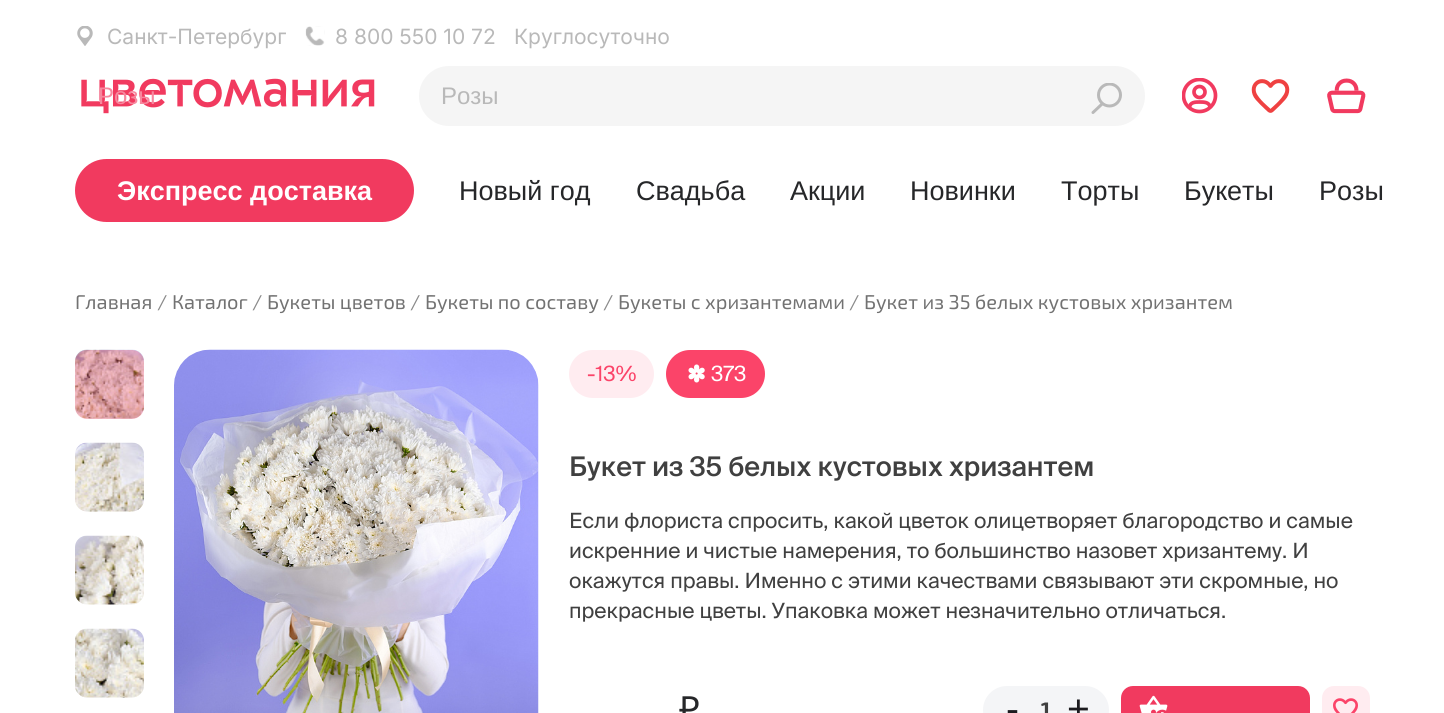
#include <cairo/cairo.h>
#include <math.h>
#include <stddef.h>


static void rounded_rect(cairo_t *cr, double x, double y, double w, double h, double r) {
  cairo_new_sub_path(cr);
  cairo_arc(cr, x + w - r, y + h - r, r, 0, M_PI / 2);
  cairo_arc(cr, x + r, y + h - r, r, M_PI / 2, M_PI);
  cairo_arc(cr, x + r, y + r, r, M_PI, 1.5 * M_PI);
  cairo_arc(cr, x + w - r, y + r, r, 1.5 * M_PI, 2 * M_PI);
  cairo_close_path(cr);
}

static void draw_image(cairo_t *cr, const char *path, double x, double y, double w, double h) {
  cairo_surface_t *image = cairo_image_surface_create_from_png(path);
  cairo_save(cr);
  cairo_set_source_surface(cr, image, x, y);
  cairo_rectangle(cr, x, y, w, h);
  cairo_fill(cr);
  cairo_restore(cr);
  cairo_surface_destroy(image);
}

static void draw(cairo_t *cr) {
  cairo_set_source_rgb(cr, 1, 1, 1);
  cairo_paint(cr);
  draw_image(cr, "images/1.png", 77, 26, 16, 20);
  draw_image(cr, "images/2.png", 305, 26, 20, 20);
  draw_image(cr, "images/3.png", 81, 78, 294, 36);
  cairo_set_source_rgb(cr, 245 / 255.0, 245 / 255.0, 245 / 255.0);
  rounded_rect(cr, 419, 66, 726, 60, 30);
  cairo_fill(cr);
  cairo_save(cr);
  cairo_rectangle(cr, 1091, 83, 31, 31);
  cairo_clip(cr);
  cairo_arc(cr, 1109.5, 95, 11, 0, 2 * M_PI);
  cairo_set_source_rgb(cr, 185 / 255.0, 185 / 255.0, 185 / 255.0);
  cairo_set_line_width(cr, 3);
  cairo_stroke(cr);
  cairo_restore(cr);
  cairo_new_path(cr);
  cairo_move_to(cr, 1093, 112.5);
  cairo_line_to(cr, 1102, 104);
  cairo_set_source_rgb(cr, 185 / 255.0, 185 / 255.0, 185 / 255.0);
  cairo_set_line_width(cr, 3);
  cairo_set_line_cap(cr, CAIRO_LINE_CAP_ROUND);
  cairo_stroke(cr);
  cairo_save(cr);
  cairo_rectangle(cr, 1182, 78, 36, 36);
  cairo_clip(cr);
  cairo_arc(cr, 1199.5, 95.5, 16, 0, 2 * M_PI);
  cairo_set_source_rgb(cr, 241 / 255.0, 58 / 255.0, 95 / 255.0);
  cairo_set_line_width(cr, 3.7);
  cairo_set_line_cap(cr, CAIRO_LINE_CAP_BUTT);
  cairo_stroke(cr);
  cairo_restore(cr);
  cairo_new_path(cr);
  cairo_move_to(cr, 1189.5, 108);
  cairo_curve_to(cr, 1189.5, 102, 1195.5, 102, 1199.5, 102);
  cairo_curve_to(cr, 1204, 102, 1210, 102, 1210, 108);
  cairo_set_source_rgb(cr, 241 / 255.0, 58 / 255.0, 95 / 255.0);
  cairo_set_line_width(cr, 3.7);
  cairo_set_line_cap(cr, CAIRO_LINE_CAP_BUTT);
  cairo_stroke(cr);
  cairo_arc(cr, 1199.5, 92, 5.5, 0, 2 * M_PI);
  cairo_stroke(cr);
  draw_image(cr, "images/4.png", 1251, 79, 39, 34);
  draw_image(cr, "images/5.png", 1327, 78, 39, 36);
  rounded_rect(cr, 75, 159, 339, 63, 31.5);
  cairo_fill(cr);
  draw_image(cr, "images/6.png", 75, 349, 69, 70);
  cairo_set_source_rgba(cr, 241 / 255.0, 58 / 255.0, 95 / 255.0, 0.3);
  rounded_rect(cr, 75, 350, 69, 69, 12);
  cairo_fill(cr);
  draw_image(cr, "images/7.png", 75, 442, 69, 70);
  draw_image(cr, "images/8.png", 75, 535, 69, 70);
  draw_image(cr, "images/9.png", 75, 628, 69, 70);
  draw_image(cr, "images/10.png", 174, 349, 365, 364);
  cairo_set_source_rgb(cr, 1, 236 / 255.0, 240 / 255.0);
  rounded_rect(cr, 569, 350, 85, 48, 24);
  cairo_fill(cr);
  cairo_set_source_rgb(cr, 251 / 255.0, 68 / 255.0, 105 / 255.0);
  rounded_rect(cr, 666, 350, 99, 48, 24);
  cairo_fill(cr);
  draw_image(cr, "images/11.png", 688, 364, 17, 19);
  cairo_set_source_rgb(cr, 244 / 255.0, 245 / 255.0, 247 / 255.0);
  rounded_rect(cr, 983, 686, 126, 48, 24);
  cairo_fill(cr);
  cairo_set_source_rgb(cr, 241 / 255.0, 58 / 255.0, 95 / 255.0);
  rounded_rect(cr, 1121, 686, 189, 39, 12);
  cairo_fill(cr);
  draw_image(cr, "images/12.png", 1139, 695, 29, 18);
  cairo_set_source_rgb(cr, 1, 236 / 255.0, 240 / 255.0);
  rounded_rect(cr, 1322, 686, 48, 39, 12);
  cairo_fill(cr);
  draw_image(cr, "images/13.png", 1333, 698, 25, 15);
  cairo_select_font_face(cr, "Inter", CAIRO_FONT_SLANT_NORMAL, CAIRO_FONT_WEIGHT_NORMAL);
  cairo_set_font_size(cr, 21);
  cairo_set_source_rgb(cr, 185 / 255.0, 185 / 255.0, 185 / 255.0);
  cairo_move_to(cr, 107, 44);
  cairo_show_text(cr, "Санкт-Петербург");
  cairo_move_to(cr, 335, 44);
  cairo_show_text(cr, "8 800 550 10 72");
  cairo_move_to(cr, 514, 44);
  cairo_show_text(cr, "Круглосуточно");
  cairo_select_font_face(cr, "Liberation Sans", CAIRO_FONT_SLANT_NORMAL, CAIRO_FONT_WEIGHT_NORMAL);
  cairo_set_font_size(cr, 24);
  cairo_set_source_rgb(cr, 247 / 255.0, 136 / 255.0, 158 / 255.0);
  cairo_move_to(cr, 98, 104);
  cairo_show_text(cr, "Розы");
  cairo_set_source_rgb(cr, 185 / 255.0, 185 / 255.0, 185 / 255.0);
  cairo_move_to(cr, 441, 104);
  cairo_show_text(cr, "Розы");
  cairo_select_font_face(cr, "Liberation Sans", CAIRO_FONT_SLANT_NORMAL, CAIRO_FONT_WEIGHT_BOLD);
  cairo_set_font_size(cr, 27);
  cairo_set_source_rgb(cr, 1, 1, 1);
  cairo_move_to(cr, 117, 200);
  cairo_show_text(cr, "Экспресс доставка");
  cairo_select_font_face(cr, "Liberation Sans", CAIRO_FONT_SLANT_NORMAL, CAIRO_FONT_WEIGHT_NORMAL);
  cairo_set_source_rgb(cr, 38 / 255.0, 39 / 255.0, 41 / 255.0);
  cairo_move_to(cr, 459, 200);
  cairo_show_text(cr, "Новый год");
  cairo_move_to(cr, 636, 200);
  cairo_show_text(cr, "Свадьба");
  cairo_move_to(cr, 790, 200);
  cairo_show_text(cr, "Акции");
  cairo_move_to(cr, 910, 200);
  cairo_show_text(cr, "Новинки");
  cairo_move_to(cr, 1061, 200);
  cairo_show_text(cr, "Торты");
  cairo_move_to(cr, 1184, 200);
  cairo_show_text(cr, "Букеты");
  cairo_move_to(cr, 1319, 200);
  cairo_show_text(cr, "Розы");
  cairo_select_font_face(cr, "Exo 2", CAIRO_FONT_SLANT_NORMAL, CAIRO_FONT_WEIGHT_NORMAL);
  cairo_set_font_size(cr, 20);
  cairo_set_source_rgb(cr, 114 / 255.0, 114 / 255.0, 114 / 255.0);
  cairo_move_to(cr, 75, 309);
  cairo_show_text(cr, "Главная");
  cairo_set_source_rgb(cr, 138 / 255.0, 138 / 255.0, 138 / 255.0);
  cairo_move_to(cr, 157, 309);
  cairo_show_text(cr, "/");
  cairo_set_source_rgb(cr, 114 / 255.0, 114 / 255.0, 114 / 255.0);
  cairo_move_to(cr, 172, 309);
  cairo_show_text(cr, "Каталог");
  cairo_set_source_rgb(cr, 138 / 255.0, 138 / 255.0, 138 / 255.0);
  cairo_move_to(cr, 252, 309);
  cairo_show_text(cr, "/");
  cairo_set_source_rgb(cr, 114 / 255.0, 114 / 255.0, 114 / 255.0);
  cairo_move_to(cr, 267, 309);
  cairo_show_text(cr, "Букеты цветов");
  cairo_set_source_rgb(cr, 138 / 255.0, 138 / 255.0, 138 / 255.0);
  cairo_move_to(cr, 410, 309);
  cairo_show_text(cr, "/");
  cairo_set_source_rgb(cr, 114 / 255.0, 114 / 255.0, 114 / 255.0);
  cairo_move_to(cr, 425, 309);
  cairo_show_text(cr, "Букеты по составу");
  cairo_set_source_rgb(cr, 138 / 255.0, 138 / 255.0, 138 / 255.0);
  cairo_move_to(cr, 603, 309);
  cairo_show_text(cr, "/");
  cairo_set_source_rgb(cr, 114 / 255.0, 114 / 255.0, 114 / 255.0);
  cairo_move_to(cr, 618, 309);
  cairo_show_text(cr, "Букеты с хризантемами");
  cairo_set_source_rgb(cr, 138 / 255.0, 138 / 255.0, 138 / 255.0);
  cairo_move_to(cr, 849, 309);
  cairo_show_text(cr, "/");
  cairo_set_source_rgb(cr, 114 / 255.0, 114 / 255.0, 114 / 255.0);
  cairo_move_to(cr, 864, 309);
  cairo_show_text(cr, "Букет из 35 белых кустовых хризантем");
  cairo_select_font_face(cr, "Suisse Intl", CAIRO_FONT_SLANT_NORMAL, CAIRO_FONT_WEIGHT_NORMAL);
  cairo_set_font_size(cr, 21);
  cairo_set_source_rgb(cr, 251 / 255.0, 68 / 255.0, 105 / 255.0);
  cairo_move_to(cr, 587, 381);
  cairo_show_text(cr, "-13%");
  cairo_set_source_rgb(cr, 1, 1, 1);
  cairo_move_to(cr, 711, 381);
  cairo_show_text(cr, "373");
  cairo_select_font_face(cr, "Suisse Intl Medium", CAIRO_FONT_SLANT_NORMAL, CAIRO_FONT_WEIGHT_NORMAL);
  cairo_set_font_size(cr, 27);
  cairo_set_source_rgb(cr, 64 / 255.0, 64 / 255.0, 64 / 255.0);
  cairo_move_to(cr, 569, 476);
  cairo_show_text(cr, "Букет из 35 белых кустовых хризантем");
  cairo_select_font_face(cr, "Suisse Intl", CAIRO_FONT_SLANT_NORMAL, CAIRO_FONT_WEIGHT_NORMAL);
  cairo_set_font_size(cr, 21);
  cairo_move_to(cr, 569, 528);
  cairo_show_text(cr, "Если флориста спросить, какой цветок олицетворяет благородство и самые");
  cairo_move_to(cr, 569, 558);
  cairo_show_text(cr, "искренние и чистые намерения, то большинство назовет хризантему. И");
  cairo_move_to(cr, 569, 588);
  cairo_show_text(cr, "окажутся правы. Именно с этими качествами связывают эти скромные, но");
  cairo_move_to(cr, 569, 618);
  cairo_show_text(cr, "прекрасные цветы. Упаковка может незначительно отличаться.");
  cairo_select_font_face(cr, "Noto Sans", CAIRO_FONT_SLANT_NORMAL, CAIRO_FONT_WEIGHT_NORMAL);
  cairo_set_font_size(cr, 36);
  cairo_set_source_rgb(cr, 38 / 255.0, 39 / 255.0, 41 / 255.0);
  cairo_move_to(cr, 679, 722);
  cairo_show_text(cr, "₽");
  cairo_select_font_face(cr, "Liberation Sans", CAIRO_FONT_SLANT_NORMAL, CAIRO_FONT_WEIGHT_NORMAL);
  cairo_set_font_size(cr, 39);
  cairo_set_source_rgb(cr, 28 / 255.0, 27 / 255.0, 31 / 255.0);
  cairo_move_to(cr, 1006, 722);
  cairo_show_text(cr, "-");
  cairo_select_font_face(cr, "Exo 2", CAIRO_FONT_SLANT_NORMAL, CAIRO_FONT_WEIGHT_BOLD);
  cairo_set_font_size(cr, 21);
  cairo_set_source_rgb(cr, 64 / 255.0, 64 / 255.0, 64 / 255.0);
  cairo_move_to(cr, 1041, 717);
  cairo_show_text(cr, "1");
  cairo_select_font_face(cr, "Liberation Sans", CAIRO_FONT_SLANT_NORMAL, CAIRO_FONT_WEIGHT_NORMAL);
  cairo_set_font_size(cr, 39);
  cairo_set_source_rgb(cr, 28 / 255.0, 27 / 255.0, 31 / 255.0);
  cairo_move_to(cr, 1067, 722);
  cairo_show_text(cr, "+");
}

int main(void) {
  cairo_surface_t *surface = cairo_image_surface_create(CAIRO_FORMAT_RGB24, 1444, 713);
  cairo_t *cr = cairo_create(surface);
  cairo_font_options_t *options = cairo_font_options_create();
  cairo_font_options_set_hint_metrics(options, CAIRO_HINT_METRICS_OFF);
  cairo_font_options_set_hint_style(options, CAIRO_HINT_STYLE_NONE);
  cairo_set_font_options(cr, options);
  cairo_set_miter_limit(cr, 4);
  draw(cr);
  cairo_surface_write_to_png(surface, "out.png");
  cairo_font_options_destroy(options);
  cairo_destroy(cr);
  cairo_surface_destroy(surface);
  return 0;
}
